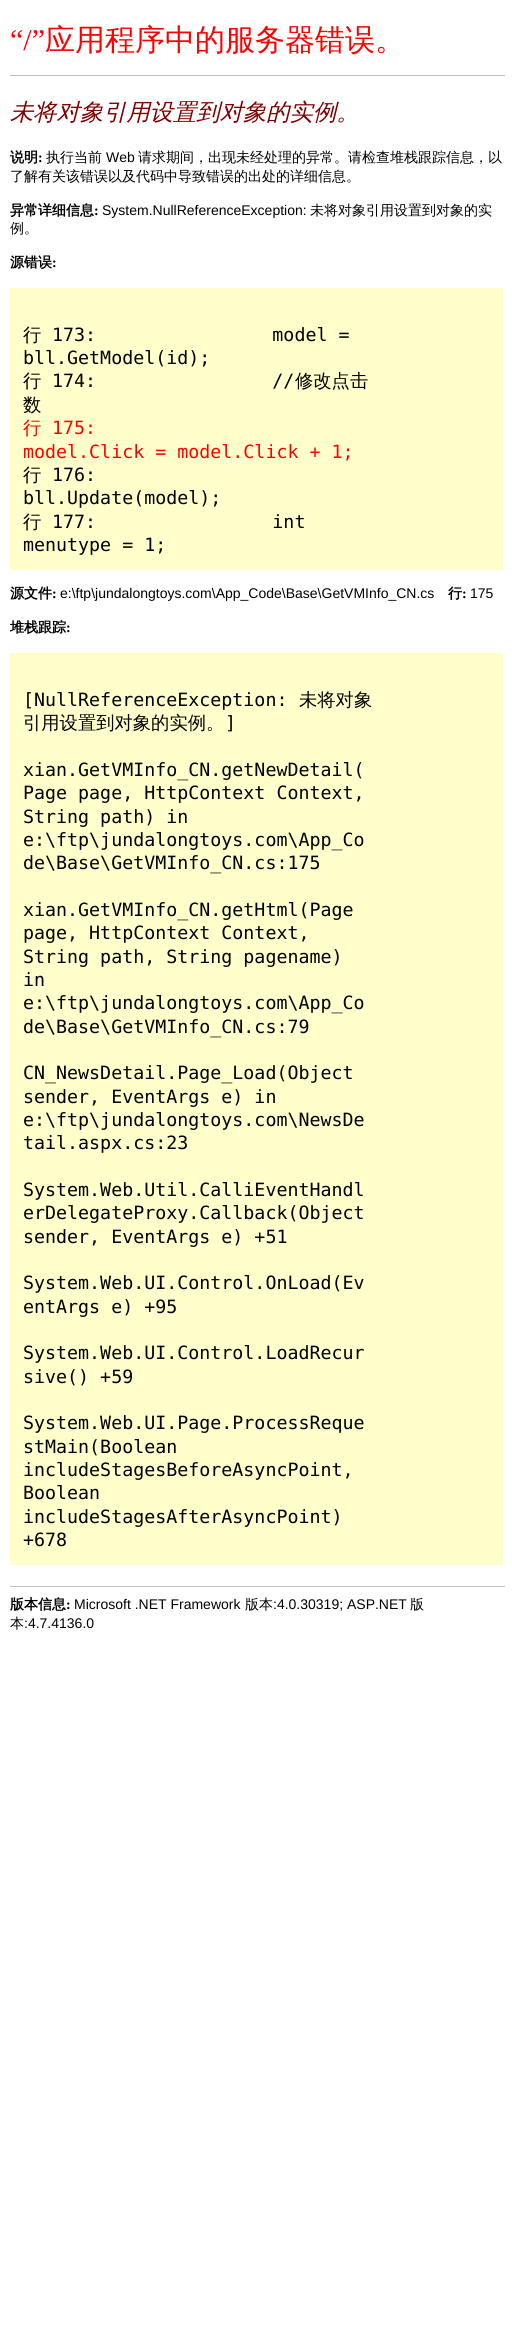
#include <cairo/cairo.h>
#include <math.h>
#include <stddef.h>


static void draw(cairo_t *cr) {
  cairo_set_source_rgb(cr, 1, 1, 1);
  cairo_paint(cr);
  cairo_set_source_rgb(cr, 192 / 255.0, 192 / 255.0, 192 / 255.0);
  cairo_rectangle(cr, 10, 75, 495, 1);
  cairo_fill(cr);
  cairo_set_source_rgb(cr, 1, 1, 204 / 255.0);
  cairo_rectangle(cr, 10, 288, 493, 282);
  cairo_fill(cr);
  cairo_rectangle(cr, 10, 653, 493, 912);
  cairo_fill(cr);
  cairo_set_source_rgb(cr, 192 / 255.0, 192 / 255.0, 192 / 255.0);
  cairo_rectangle(cr, 10, 1586, 495, 1);
  cairo_fill(cr);
  cairo_select_font_face(cr, "Liberation Serif", CAIRO_FONT_SLANT_NORMAL, CAIRO_FONT_WEIGHT_NORMAL);
  cairo_set_font_size(cr, 30);
  cairo_set_source_rgb(cr, 1, 0, 0);
  cairo_move_to(cr, 10, 50);
  cairo_show_text(cr, "“/”");
  cairo_select_font_face(cr, "WenQuanYi Zen Hei Medium", CAIRO_FONT_SLANT_NORMAL, CAIRO_FONT_WEIGHT_NORMAL);
  cairo_move_to(cr, 45, 50);
  cairo_show_text(cr, "应用程序中的服务器错误。");
  cairo_select_font_face(cr, "WenQuanYi Zen Hei Medium", CAIRO_FONT_SLANT_ITALIC, CAIRO_FONT_WEIGHT_NORMAL);
  cairo_set_font_size(cr, 23.3);
  cairo_set_source_rgb(cr, 128 / 255.0, 0, 0);
  cairo_move_to(cr, 10, 120);
  cairo_show_text(cr, "未将对象引用设置到对象的实例。");
  cairo_select_font_face(cr, "WenQuanYi Zen Hei", CAIRO_FONT_SLANT_NORMAL, CAIRO_FONT_WEIGHT_BOLD);
  cairo_set_font_size(cr, 14);
  cairo_set_source_rgb(cr, 0, 0, 0);
  cairo_move_to(cr, 10, 162);
  cairo_show_text(cr, "说明");
  cairo_select_font_face(cr, "Liberation Serif", CAIRO_FONT_SLANT_NORMAL, CAIRO_FONT_WEIGHT_BOLD);
  cairo_move_to(cr, 38, 162);
  cairo_show_text(cr, ":");
  cairo_select_font_face(cr, "WenQuanYi Zen Hei Medium", CAIRO_FONT_SLANT_NORMAL, CAIRO_FONT_WEIGHT_NORMAL);
  cairo_move_to(cr, 46, 162);
  cairo_show_text(cr, "执行当前");
  cairo_select_font_face(cr, "Liberation Sans", CAIRO_FONT_SLANT_NORMAL, CAIRO_FONT_WEIGHT_NORMAL);
  cairo_move_to(cr, 106, 162);
  cairo_show_text(cr, "Web");
  cairo_select_font_face(cr, "WenQuanYi Zen Hei Medium", CAIRO_FONT_SLANT_NORMAL, CAIRO_FONT_WEIGHT_NORMAL);
  cairo_move_to(cr, 138, 162);
  cairo_show_text(cr, "请求期间，出现未经处理的异常。请检查堆栈跟踪信息，以");
  cairo_move_to(cr, 10, 181);
  cairo_show_text(cr, "了解有关该错误以及代码中导致错误的出处的详细信息。");
  cairo_select_font_face(cr, "WenQuanYi Zen Hei", CAIRO_FONT_SLANT_NORMAL, CAIRO_FONT_WEIGHT_BOLD);
  cairo_move_to(cr, 10, 215);
  cairo_show_text(cr, "异常详细信息");
  cairo_select_font_face(cr, "Liberation Serif", CAIRO_FONT_SLANT_NORMAL, CAIRO_FONT_WEIGHT_BOLD);
  cairo_move_to(cr, 94, 215);
  cairo_show_text(cr, ":");
  cairo_select_font_face(cr, "Liberation Sans", CAIRO_FONT_SLANT_NORMAL, CAIRO_FONT_WEIGHT_NORMAL);
  cairo_move_to(cr, 102, 215);
  cairo_show_text(cr, "System.NullReferenceException:");
  cairo_select_font_face(cr, "WenQuanYi Zen Hei Medium", CAIRO_FONT_SLANT_NORMAL, CAIRO_FONT_WEIGHT_NORMAL);
  cairo_move_to(cr, 310, 215);
  cairo_show_text(cr, "未将对象引用设置到对象的实");
  cairo_move_to(cr, 10, 233);
  cairo_show_text(cr, "例。");
  cairo_select_font_face(cr, "WenQuanYi Zen Hei", CAIRO_FONT_SLANT_NORMAL, CAIRO_FONT_WEIGHT_BOLD);
  cairo_move_to(cr, 10, 267);
  cairo_show_text(cr, "源错误");
  cairo_select_font_face(cr, "Liberation Serif", CAIRO_FONT_SLANT_NORMAL, CAIRO_FONT_WEIGHT_BOLD);
  cairo_move_to(cr, 52, 267);
  cairo_show_text(cr, ":");
  cairo_select_font_face(cr, "WenQuanYi Zen Hei Medium", CAIRO_FONT_SLANT_NORMAL, CAIRO_FONT_WEIGHT_NORMAL);
  cairo_set_font_size(cr, 18.3);
  cairo_move_to(cr, 23, 341);
  cairo_show_text(cr, "行");
  cairo_select_font_face(cr, "DejaVu Sans Mono", CAIRO_FONT_SLANT_NORMAL, CAIRO_FONT_WEIGHT_NORMAL);
  cairo_move_to(cr, 52, 341);
  cairo_show_text(cr, "173:                model =");
  cairo_move_to(cr, 23, 364);
  cairo_show_text(cr, "bll.GetModel(id);");
  cairo_select_font_face(cr, "WenQuanYi Zen Hei Medium", CAIRO_FONT_SLANT_NORMAL, CAIRO_FONT_WEIGHT_NORMAL);
  cairo_move_to(cr, 23, 387);
  cairo_show_text(cr, "行");
  cairo_select_font_face(cr, "DejaVu Sans Mono", CAIRO_FONT_SLANT_NORMAL, CAIRO_FONT_WEIGHT_NORMAL);
  cairo_move_to(cr, 52, 387);
  cairo_show_text(cr, "174:                //");
  cairo_select_font_face(cr, "WenQuanYi Zen Hei Medium", CAIRO_FONT_SLANT_NORMAL, CAIRO_FONT_WEIGHT_NORMAL);
  cairo_move_to(cr, 295, 387);
  cairo_show_text(cr, "修改点击");
  cairo_move_to(cr, 23, 411);
  cairo_show_text(cr, "数");
  cairo_set_source_rgb(cr, 1, 0, 0);
  cairo_move_to(cr, 23, 434);
  cairo_show_text(cr, "行");
  cairo_select_font_face(cr, "DejaVu Sans Mono", CAIRO_FONT_SLANT_NORMAL, CAIRO_FONT_WEIGHT_NORMAL);
  cairo_move_to(cr, 52, 434);
  cairo_show_text(cr, "175:");
  cairo_move_to(cr, 23, 458);
  cairo_show_text(cr, "model.Click = model.Click + 1;");
  cairo_select_font_face(cr, "WenQuanYi Zen Hei Medium", CAIRO_FONT_SLANT_NORMAL, CAIRO_FONT_WEIGHT_NORMAL);
  cairo_set_source_rgb(cr, 0, 0, 0);
  cairo_move_to(cr, 23, 481);
  cairo_show_text(cr, "行");
  cairo_select_font_face(cr, "DejaVu Sans Mono", CAIRO_FONT_SLANT_NORMAL, CAIRO_FONT_WEIGHT_NORMAL);
  cairo_move_to(cr, 52, 481);
  cairo_show_text(cr, "176:");
  cairo_move_to(cr, 23, 504);
  cairo_show_text(cr, "bll.Update(model);");
  cairo_select_font_face(cr, "WenQuanYi Zen Hei Medium", CAIRO_FONT_SLANT_NORMAL, CAIRO_FONT_WEIGHT_NORMAL);
  cairo_move_to(cr, 23, 528);
  cairo_show_text(cr, "行");
  cairo_select_font_face(cr, "DejaVu Sans Mono", CAIRO_FONT_SLANT_NORMAL, CAIRO_FONT_WEIGHT_NORMAL);
  cairo_move_to(cr, 52, 528);
  cairo_show_text(cr, "177:                int");
  cairo_move_to(cr, 23, 551);
  cairo_show_text(cr, "menutype = 1;");
  cairo_select_font_face(cr, "WenQuanYi Zen Hei", CAIRO_FONT_SLANT_NORMAL, CAIRO_FONT_WEIGHT_BOLD);
  cairo_set_font_size(cr, 14);
  cairo_move_to(cr, 10, 598);
  cairo_show_text(cr, "源文件");
  cairo_select_font_face(cr, "Liberation Serif", CAIRO_FONT_SLANT_NORMAL, CAIRO_FONT_WEIGHT_BOLD);
  cairo_move_to(cr, 52, 598);
  cairo_show_text(cr, ":");
  cairo_select_font_face(cr, "Liberation Sans", CAIRO_FONT_SLANT_NORMAL, CAIRO_FONT_WEIGHT_NORMAL);
  cairo_move_to(cr, 60, 598);
  cairo_show_text(cr, "e:\\ftp\\jundalongtoys.com\\App_Code\\Base\\GetVMInfo_CN.cs");
  cairo_select_font_face(cr, "WenQuanYi Zen Hei", CAIRO_FONT_SLANT_NORMAL, CAIRO_FONT_WEIGHT_BOLD);
  cairo_move_to(cr, 448, 598);
  cairo_show_text(cr, "行");
  cairo_select_font_face(cr, "Liberation Serif", CAIRO_FONT_SLANT_NORMAL, CAIRO_FONT_WEIGHT_BOLD);
  cairo_move_to(cr, 462, 598);
  cairo_show_text(cr, ":");
  cairo_select_font_face(cr, "Liberation Sans", CAIRO_FONT_SLANT_NORMAL, CAIRO_FONT_WEIGHT_NORMAL);
  cairo_move_to(cr, 470, 598);
  cairo_show_text(cr, "175");
  cairo_select_font_face(cr, "WenQuanYi Zen Hei", CAIRO_FONT_SLANT_NORMAL, CAIRO_FONT_WEIGHT_BOLD);
  cairo_move_to(cr, 10, 632);
  cairo_show_text(cr, "堆栈跟踪");
  cairo_select_font_face(cr, "Liberation Serif", CAIRO_FONT_SLANT_NORMAL, CAIRO_FONT_WEIGHT_BOLD);
  cairo_move_to(cr, 66, 632);
  cairo_show_text(cr, ":");
  cairo_select_font_face(cr, "DejaVu Sans Mono", CAIRO_FONT_SLANT_NORMAL, CAIRO_FONT_WEIGHT_NORMAL);
  cairo_set_font_size(cr, 18.3);
  cairo_move_to(cr, 23, 706);
  cairo_show_text(cr, "[NullReferenceException:");
  cairo_select_font_face(cr, "WenQuanYi Zen Hei Medium", CAIRO_FONT_SLANT_NORMAL, CAIRO_FONT_WEIGHT_NORMAL);
  cairo_move_to(cr, 299, 706);
  cairo_show_text(cr, "未将对象");
  cairo_move_to(cr, 23, 729);
  cairo_show_text(cr, "引用设置到对象的实例。");
  cairo_select_font_face(cr, "DejaVu Sans Mono", CAIRO_FONT_SLANT_NORMAL, CAIRO_FONT_WEIGHT_NORMAL);
  cairo_move_to(cr, 225, 729);
  cairo_show_text(cr, "]");
  cairo_move_to(cr, 23, 776);
  cairo_show_text(cr, "xian.GetVMInfo_CN.getNewDetail(");
  cairo_move_to(cr, 23, 799);
  cairo_show_text(cr, "Page page, HttpContext Context,");
  cairo_move_to(cr, 23, 823);
  cairo_show_text(cr, "String path) in");
  cairo_move_to(cr, 23, 846);
  cairo_show_text(cr, "e:\\ftp\\jundalongtoys.com\\App_Co");
  cairo_move_to(cr, 23, 869);
  cairo_show_text(cr, "de\\Base\\GetVMInfo_CN.cs:175");
  cairo_move_to(cr, 23, 916);
  cairo_show_text(cr, "xian.GetVMInfo_CN.getHtml(Page");
  cairo_move_to(cr, 23, 939);
  cairo_show_text(cr, "page, HttpContext Context,");
  cairo_move_to(cr, 23, 963);
  cairo_show_text(cr, "String path, String pagename)");
  cairo_move_to(cr, 23, 986);
  cairo_show_text(cr, "in");
  cairo_move_to(cr, 23, 1009);
  cairo_show_text(cr, "e:\\ftp\\jundalongtoys.com\\App_Co");
  cairo_move_to(cr, 23, 1033);
  cairo_show_text(cr, "de\\Base\\GetVMInfo_CN.cs:79");
  cairo_move_to(cr, 23, 1079);
  cairo_show_text(cr, "CN_NewsDetail.Page_Load(Object");
  cairo_move_to(cr, 23, 1103);
  cairo_show_text(cr, "sender, EventArgs e) in");
  cairo_move_to(cr, 23, 1126);
  cairo_show_text(cr, "e:\\ftp\\jundalongtoys.com\\NewsDe");
  cairo_move_to(cr, 23, 1149);
  cairo_show_text(cr, "tail.aspx.cs:23");
  cairo_move_to(cr, 23, 1196);
  cairo_show_text(cr, "System.Web.Util.CalliEventHandl");
  cairo_move_to(cr, 23, 1219);
  cairo_show_text(cr, "erDelegateProxy.Callback(Object");
  cairo_move_to(cr, 23, 1243);
  cairo_show_text(cr, "sender, EventArgs e) +51");
  cairo_move_to(cr, 23, 1289);
  cairo_show_text(cr, "System.Web.UI.Control.OnLoad(Ev");
  cairo_move_to(cr, 23, 1313);
  cairo_show_text(cr, "entArgs e) +95");
  cairo_move_to(cr, 23, 1359);
  cairo_show_text(cr, "System.Web.UI.Control.LoadRecur");
  cairo_move_to(cr, 23, 1383);
  cairo_show_text(cr, "sive() +59");
  cairo_move_to(cr, 23, 1429);
  cairo_show_text(cr, "System.Web.UI.Page.ProcessReque");
  cairo_move_to(cr, 23, 1453);
  cairo_show_text(cr, "stMain(Boolean");
  cairo_move_to(cr, 23, 1476);
  cairo_show_text(cr, "includeStagesBeforeAsyncPoint,");
  cairo_move_to(cr, 23, 1499);
  cairo_show_text(cr, "Boolean");
  cairo_move_to(cr, 23, 1523);
  cairo_show_text(cr, "includeStagesAfterAsyncPoint)");
  cairo_move_to(cr, 23, 1546);
  cairo_show_text(cr, "+678");
  cairo_select_font_face(cr, "WenQuanYi Zen Hei", CAIRO_FONT_SLANT_NORMAL, CAIRO_FONT_WEIGHT_BOLD);
  cairo_set_font_size(cr, 14);
  cairo_move_to(cr, 10, 1609);
  cairo_show_text(cr, "版本信息");
  cairo_select_font_face(cr, "Liberation Serif", CAIRO_FONT_SLANT_NORMAL, CAIRO_FONT_WEIGHT_BOLD);
  cairo_move_to(cr, 66, 1609);
  cairo_show_text(cr, ":");
  cairo_select_font_face(cr, "Liberation Sans", CAIRO_FONT_SLANT_NORMAL, CAIRO_FONT_WEIGHT_NORMAL);
  cairo_move_to(cr, 74, 1609);
  cairo_show_text(cr, "Microsoft .NET Framework");
  cairo_select_font_face(cr, "WenQuanYi Zen Hei Medium", CAIRO_FONT_SLANT_NORMAL, CAIRO_FONT_WEIGHT_NORMAL);
  cairo_move_to(cr, 245, 1609);
  cairo_show_text(cr, "版本");
  cairo_select_font_face(cr, "Liberation Sans", CAIRO_FONT_SLANT_NORMAL, CAIRO_FONT_WEIGHT_NORMAL);
  cairo_move_to(cr, 273, 1609);
  cairo_show_text(cr, ":4.0.30319; ASP.NET");
  cairo_select_font_face(cr, "WenQuanYi Zen Hei Medium", CAIRO_FONT_SLANT_NORMAL, CAIRO_FONT_WEIGHT_NORMAL);
  cairo_move_to(cr, 410, 1609);
  cairo_show_text(cr, "版");
  cairo_move_to(cr, 10, 1628);
  cairo_show_text(cr, "本");
  cairo_select_font_face(cr, "Liberation Sans", CAIRO_FONT_SLANT_NORMAL, CAIRO_FONT_WEIGHT_NORMAL);
  cairo_move_to(cr, 24, 1628);
  cairo_show_text(cr, ":4.7.4136.0");
}

int main(void) {
  cairo_surface_t *surface = cairo_image_surface_create(CAIRO_FORMAT_RGB24, 512, 2350);
  cairo_t *cr = cairo_create(surface);
  cairo_font_options_t *options = cairo_font_options_create();
  cairo_font_options_set_hint_metrics(options, CAIRO_HINT_METRICS_OFF);
  cairo_font_options_set_hint_style(options, CAIRO_HINT_STYLE_NONE);
  cairo_set_font_options(cr, options);
  cairo_set_miter_limit(cr, 4);
  draw(cr);
  cairo_surface_write_to_png(surface, "out.png");
  cairo_font_options_destroy(options);
  cairo_destroy(cr);
  cairo_surface_destroy(surface);
  return 0;
}
